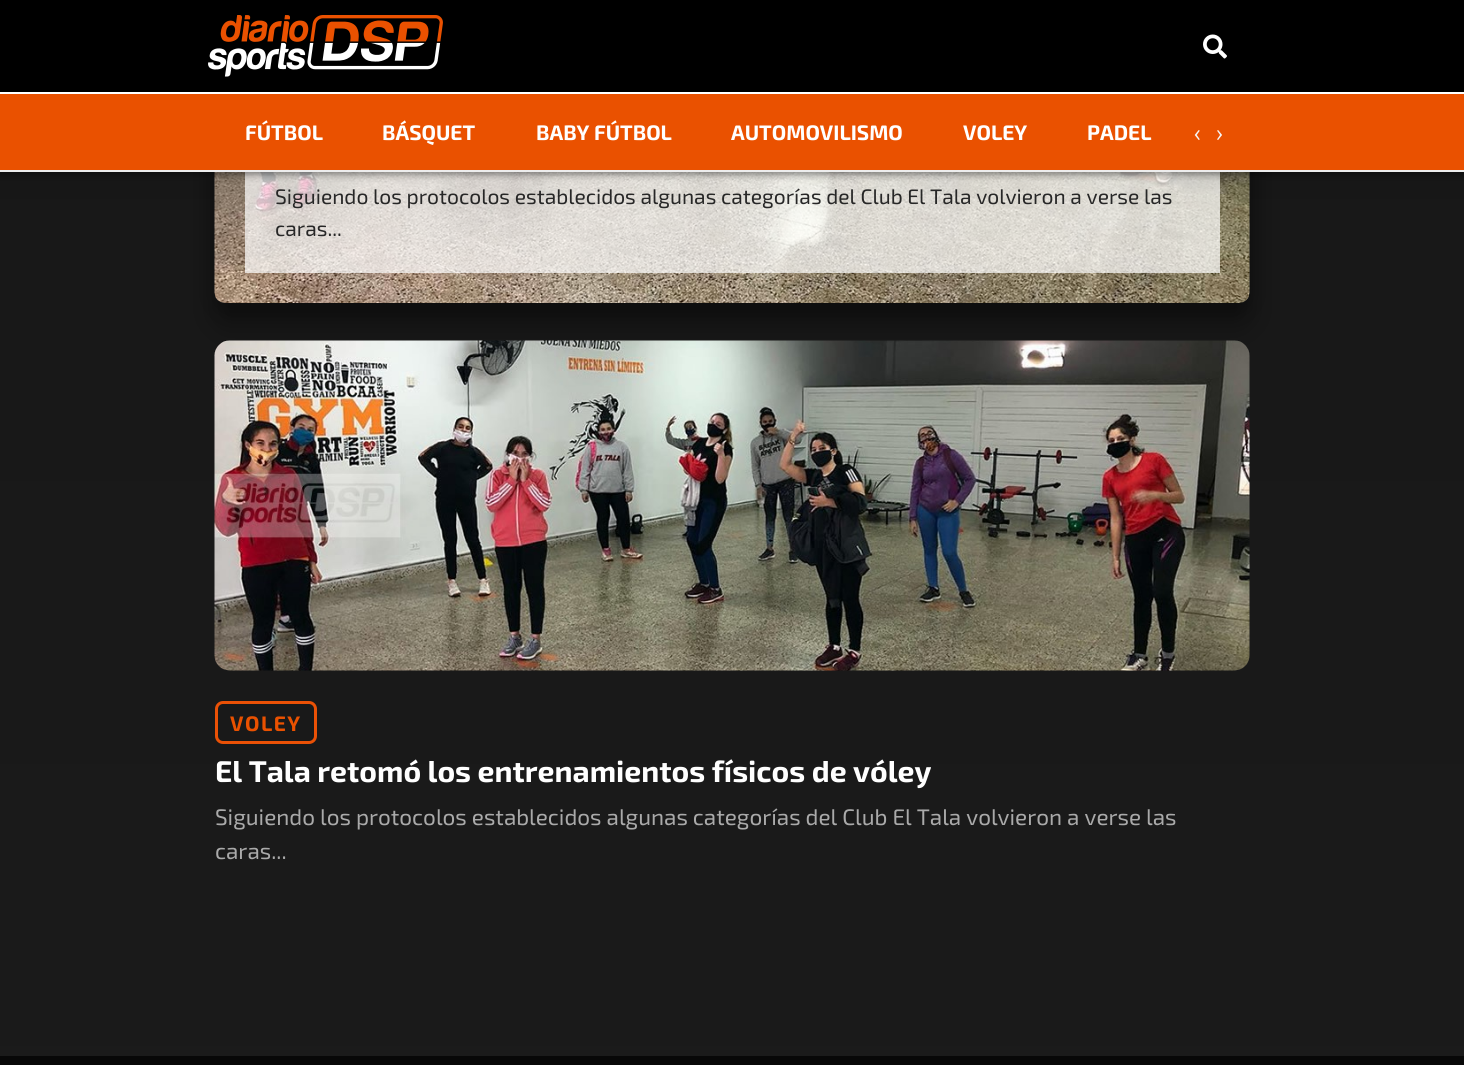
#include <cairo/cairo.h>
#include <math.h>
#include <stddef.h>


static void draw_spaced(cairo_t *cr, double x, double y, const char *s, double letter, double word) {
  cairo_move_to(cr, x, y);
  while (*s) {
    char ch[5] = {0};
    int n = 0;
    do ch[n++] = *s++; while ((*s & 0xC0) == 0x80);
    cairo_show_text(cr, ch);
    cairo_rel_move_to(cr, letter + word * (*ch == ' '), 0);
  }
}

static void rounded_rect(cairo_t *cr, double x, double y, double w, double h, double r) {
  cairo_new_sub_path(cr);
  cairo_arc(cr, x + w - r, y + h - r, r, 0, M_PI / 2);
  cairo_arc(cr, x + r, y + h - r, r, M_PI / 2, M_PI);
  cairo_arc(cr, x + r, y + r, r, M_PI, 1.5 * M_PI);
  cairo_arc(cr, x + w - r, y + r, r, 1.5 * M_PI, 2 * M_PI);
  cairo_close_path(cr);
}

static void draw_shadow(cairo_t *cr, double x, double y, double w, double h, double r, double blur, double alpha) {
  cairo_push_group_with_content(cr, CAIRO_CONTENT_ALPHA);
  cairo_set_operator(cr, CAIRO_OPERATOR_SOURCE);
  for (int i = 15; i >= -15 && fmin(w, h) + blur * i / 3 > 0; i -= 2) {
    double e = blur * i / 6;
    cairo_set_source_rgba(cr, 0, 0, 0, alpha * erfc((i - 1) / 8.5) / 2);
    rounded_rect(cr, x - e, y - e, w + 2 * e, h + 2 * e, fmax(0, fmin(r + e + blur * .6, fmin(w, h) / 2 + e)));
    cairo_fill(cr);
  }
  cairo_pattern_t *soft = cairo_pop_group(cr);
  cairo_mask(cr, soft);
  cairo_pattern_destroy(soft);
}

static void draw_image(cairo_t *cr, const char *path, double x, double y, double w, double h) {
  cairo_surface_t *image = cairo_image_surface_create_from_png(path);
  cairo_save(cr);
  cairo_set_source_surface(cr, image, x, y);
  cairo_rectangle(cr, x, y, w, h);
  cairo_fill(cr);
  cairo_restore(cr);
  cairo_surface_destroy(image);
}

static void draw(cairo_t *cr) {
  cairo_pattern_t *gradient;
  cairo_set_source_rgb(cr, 1, 1, 1);
  cairo_paint(cr);
  gradient = cairo_pattern_create_linear(732, -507, 732, 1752);
  cairo_pattern_add_color_stop_rgba(gradient, 0, 22 / 255.0, 22 / 255.0, 22 / 255.0, 1);
  cairo_pattern_add_color_stop_rgba(gradient, 0.25, 23 / 255.0, 23 / 255.0, 23 / 255.0, 1);
  cairo_pattern_add_color_stop_rgba(gradient, 0.5, 25 / 255.0, 25 / 255.0, 25 / 255.0, 1);
  cairo_pattern_add_color_stop_rgba(gradient, 0.75, 27 / 255.0, 27 / 255.0, 27 / 255.0, 1);
  cairo_pattern_add_color_stop_rgba(gradient, 1, 22 / 255.0, 22 / 255.0, 22 / 255.0, 1);
  cairo_set_source(cr, gradient);
  cairo_pattern_destroy(gradient);
  cairo_rectangle(cr, 0, 172, 1464, 884);
  cairo_fill(cr);
  cairo_set_source_rgb(cr, 0, 0, 0);
  draw_shadow(cr, 215, -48, 1035, 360, 15, 11, 0.3);
  cairo_set_source_rgb(cr, 38 / 255.0, 38 / 255.0, 38 / 255.0);
  rounded_rect(cr, 215, -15, 1035, 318, 15);
  cairo_fill(cr);
  cairo_set_source_rgb(cr, 0, 0, 0);
  draw_shadow(cr, 215, -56, 1035, 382, 11, 15, 0.3);
  cairo_set_source_rgb(cr, 0, 0, 0);
  cairo_rectangle(cr, 0, 0, 1464, 92);
  cairo_fill(cr);
  draw_image(cr, "images/1.png", 208, 15, 235, 62);
  draw_image(cr, "images/2.png", 1203, 34, 24, 25);
  draw_image(cr, "images/3.png", 214, 172, 1036, 131);
  cairo_set_source_rgba(cr, 1, 1, 1, 0.71);
  cairo_rectangle(cr, 245, 172, 975, 101);
  cairo_fill(cr);
  cairo_set_source_rgb(cr, 0, 0, 0);
  draw_shadow(cr, 0, 95, 1464, 79, 0, 4, 0.5);
  cairo_set_source_rgb(cr, 234 / 255.0, 81 / 255.0, 0);
  cairo_rectangle(cr, 0, 94, 1464, 76);
  cairo_fill(cr);
  cairo_set_source_rgb(cr, 1, 1, 1);
  cairo_rectangle(cr, 0, 92, 1464, 2);
  cairo_fill(cr);
  cairo_set_source_rgb(cr, 237 / 255.0, 237 / 255.0, 237 / 255.0);
  cairo_rectangle(cr, 0, 170, 1464, 2);
  cairo_fill(cr);
  draw_image(cr, "images/4.png", 214, 340, 1036, 331);
  rounded_rect(cr, 216.5, 702.5, 99, 40, 6.5);
  cairo_set_source_rgb(cr, 234 / 255.0, 81 / 255.0, 6 / 255.0);
  cairo_set_line_width(cr, 3);
  cairo_stroke(cr);
  cairo_set_source_rgb(cr, 8 / 255.0, 8 / 255.0, 8 / 255.0);
  cairo_rectangle(cr, 0, 1056, 1464, 9);
  cairo_fill(cr);
  cairo_select_font_face(cr, "Exo 2", CAIRO_FONT_SLANT_NORMAL, CAIRO_FONT_WEIGHT_BOLD);
  cairo_set_font_size(cr, 21);
  cairo_set_source_rgb(cr, 1, 1, 1);
  cairo_move_to(cr, 245, 140);
  cairo_show_text(cr, "FÚTBOL");
  cairo_move_to(cr, 382, 140);
  cairo_show_text(cr, "BÁSQUET");
  cairo_move_to(cr, 536, 140);
  cairo_show_text(cr, "BABY FÚTBOL");
  cairo_move_to(cr, 731, 140);
  cairo_show_text(cr, "AUTOMOVILISMO");
  cairo_move_to(cr, 963, 140);
  cairo_show_text(cr, "VOLEY");
  cairo_move_to(cr, 1087, 140);
  cairo_show_text(cr, "PADEL");
  cairo_select_font_face(cr, "Exo 2", CAIRO_FONT_SLANT_NORMAL, CAIRO_FONT_WEIGHT_NORMAL);
  cairo_set_font_size(cr, 24);
  cairo_set_source_rgb(cr, 245 / 255.0, 245 / 255.0, 245 / 255.0);
  cairo_move_to(cr, 1194, 141);
  cairo_show_text(cr, "‹");
  cairo_move_to(cr, 1216, 141);
  cairo_show_text(cr, "›");
  cairo_set_font_size(cr, 21);
  cairo_set_source_rgb(cr, 39 / 255.0, 39 / 255.0, 39 / 255.0);
  cairo_move_to(cr, 275, 204);
  cairo_show_text(cr, "Siguiendo los protocolos establecidos algunas categorías del Club El Tala volvieron a verse las");
  cairo_move_to(cr, 275, 236);
  cairo_show_text(cr, "caras...");
  cairo_select_font_face(cr, "Exo 2", CAIRO_FONT_SLANT_NORMAL, CAIRO_FONT_WEIGHT_BOLD);
  cairo_set_source_rgb(cr, 234 / 255.0, 81 / 255.0, 0);
  draw_spaced(cr, 230, 731, "VOLEY", 1.5, 0);
  cairo_set_font_size(cr, 30);
  cairo_set_source_rgb(cr, 1, 1, 1);
  cairo_move_to(cr, 215, 782);
  cairo_show_text(cr, "El Tala retomó los entrenamientos físicos de vóley");
  cairo_select_font_face(cr, "Exo 2", CAIRO_FONT_SLANT_NORMAL, CAIRO_FONT_WEIGHT_NORMAL);
  cairo_set_font_size(cr, 22.5);
  cairo_set_source_rgb(cr, 170 / 255.0, 170 / 255.0, 170 / 255.0);
  cairo_move_to(cr, 215, 825);
  cairo_show_text(cr, "Siguiendo los protocolos establecidos algunas categorías del Club El Tala volvieron a verse las");
  cairo_move_to(cr, 215, 859);
  cairo_show_text(cr, "caras...");
}

int main(void) {
  cairo_surface_t *surface = cairo_image_surface_create(CAIRO_FORMAT_RGB24, 1464, 1065);
  cairo_t *cr = cairo_create(surface);
  cairo_font_options_t *options = cairo_font_options_create();
  cairo_font_options_set_hint_metrics(options, CAIRO_HINT_METRICS_OFF);
  cairo_font_options_set_hint_style(options, CAIRO_HINT_STYLE_NONE);
  cairo_set_font_options(cr, options);
  cairo_set_miter_limit(cr, 4);
  draw(cr);
  cairo_surface_write_to_png(surface, "out.png");
  cairo_font_options_destroy(options);
  cairo_destroy(cr);
  cairo_surface_destroy(surface);
  return 0;
}
